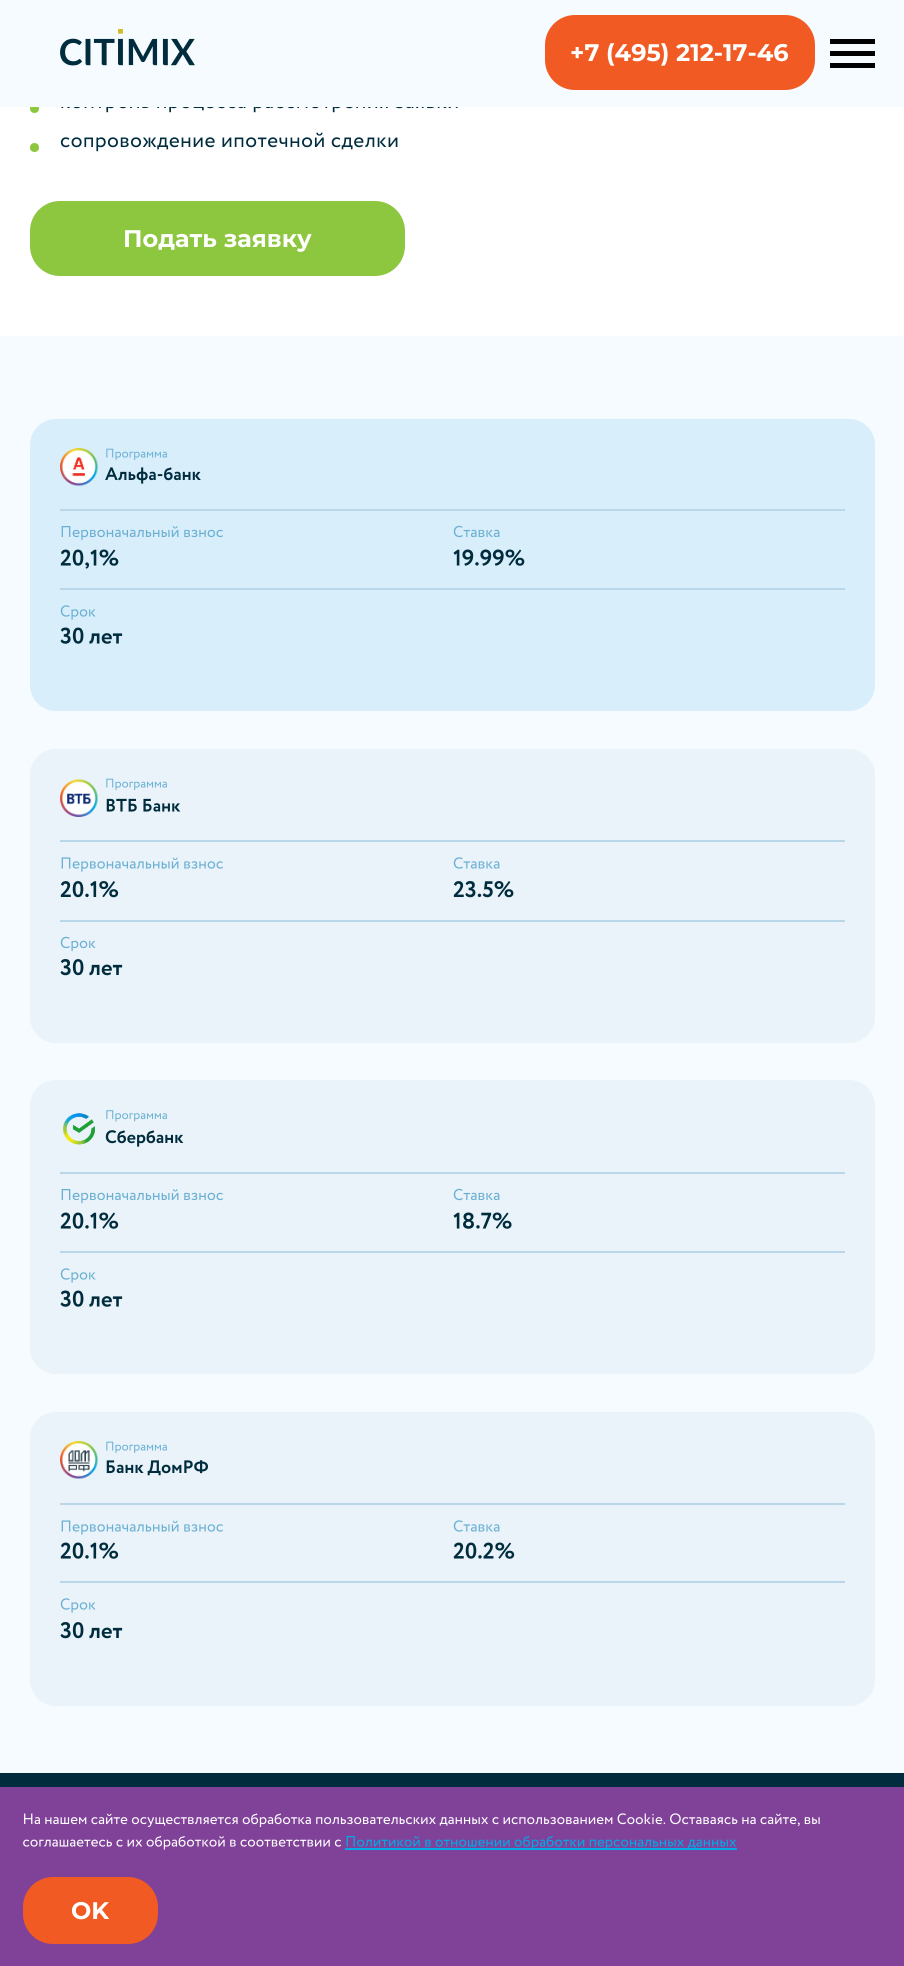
#include <cairo/cairo.h>
#include <math.h>
#include <stddef.h>


static void rounded_rect(cairo_t *cr, double x, double y, double w, double h, double r) {
  cairo_new_sub_path(cr);
  cairo_arc(cr, x + w - r, y + h - r, r, 0, M_PI / 2);
  cairo_arc(cr, x + r, y + h - r, r, M_PI / 2, M_PI);
  cairo_arc(cr, x + r, y + r, r, M_PI, 1.5 * M_PI);
  cairo_arc(cr, x + w - r, y + r, r, 1.5 * M_PI, 2 * M_PI);
  cairo_close_path(cr);
}

static void draw_image(cairo_t *cr, const char *path, double x, double y, double w, double h) {
  cairo_surface_t *image = cairo_image_surface_create_from_png(path);
  cairo_save(cr);
  cairo_set_source_surface(cr, image, x, y);
  cairo_rectangle(cr, x, y, w, h);
  cairo_fill(cr);
  cairo_restore(cr);
  cairo_surface_destroy(image);
}

static void draw(cairo_t *cr) {
  cairo_set_source_rgb(cr, 245 / 255.0, 251 / 255.0, 254 / 255.0);
  cairo_paint(cr);
  cairo_set_source_rgb(cr, 1, 1, 1);
  cairo_rectangle(cr, 0, 107, 904, 229);
  cairo_fill(cr);
  cairo_set_source_rgb(cr, 141 / 255.0, 198 / 255.0, 63 / 255.0);
  cairo_arc(cr, 34.5, 108.5, 4.5, 0, 2 * M_PI);
  cairo_fill(cr);
  cairo_set_source_rgb(cr, 245 / 255.0, 251 / 255.0, 254 / 255.0);
  cairo_rectangle(cr, 30, 104, 9, 3);
  cairo_fill(cr);
  draw_image(cr, "images/1.png", 60, 29, 135, 37);
  cairo_set_source_rgb(cr, 241 / 255.0, 90 / 255.0, 34 / 255.0);
  rounded_rect(cr, 545, 15, 270, 75, 30);
  cairo_fill(cr);
  cairo_set_source_rgb(cr, 0, 0, 0);
  cairo_rectangle(cr, 830, 51, 45, 5);
  cairo_fill(cr);
  cairo_rectangle(cr, 830, 39, 45, 5);
  cairo_fill(cr);
  cairo_rectangle(cr, 830, 63, 45, 5);
  cairo_fill(cr);
  draw_image(cr, "images/2.png", 61, 107, 397, 6);
  cairo_set_source_rgb(cr, 141 / 255.0, 198 / 255.0, 63 / 255.0);
  cairo_arc(cr, 34.5, 147.5, 4.5, 0, 2 * M_PI);
  cairo_fill(cr);
  draw_image(cr, "images/3.png", 60, 132, 338, 20);
  rounded_rect(cr, 30, 201, 375, 75, 30);
  cairo_fill(cr);
  cairo_set_source_rgb(cr, 217 / 255.0, 238 / 255.0, 251 / 255.0);
  rounded_rect(cr, 30, 419, 845, 292, 26);
  cairo_fill(cr);
  cairo_set_source_rgb(cr, 186 / 255.0, 215 / 255.0, 233 / 255.0);
  cairo_rectangle(cr, 60, 509, 785, 2);
  cairo_fill(cr);
  draw_image(cr, "images/4.png", 60, 448, 38, 38);
  draw_image(cr, "images/5.png", 106, 448, 61, 12);
  draw_image(cr, "images/6.png", 105, 467, 96, 17);
  draw_image(cr, "images/7.png", 453, 525, 47, 13);
  draw_image(cr, "images/8.png", 453, 549, 72, 17);
  cairo_rectangle(cr, 60, 588, 785, 2);
  cairo_fill(cr);
  draw_image(cr, "images/9.png", 61, 526, 162, 15);
  draw_image(cr, "images/10.png", 60, 549, 59, 20);
  draw_image(cr, "images/11.png", 60, 605, 36, 15);
  draw_image(cr, "images/12.png", 60, 627, 24, 17);
  draw_image(cr, "images/13.png", 89, 633, 34, 11);
  cairo_set_source_rgb(cr, 233 / 255.0, 243 / 255.0, 249 / 255.0);
  rounded_rect(cr, 30, 749, 845, 294, 26);
  cairo_fill(cr);
  cairo_set_source_rgb(cr, 186 / 255.0, 215 / 255.0, 233 / 255.0);
  cairo_rectangle(cr, 60, 840, 785, 2);
  cairo_fill(cr);
  draw_image(cr, "images/14.png", 60, 779, 38, 38);
  draw_image(cr, "images/15.png", 106, 778, 61, 12);
  draw_image(cr, "images/16.png", 106, 798, 75, 14);
  cairo_rectangle(cr, 60, 920, 785, 2);
  cairo_fill(cr);
  draw_image(cr, "images/17.png", 61, 857, 162, 15);
  draw_image(cr, "images/18.png", 60, 881, 59, 17);
  draw_image(cr, "images/19.png", 453, 857, 47, 12);
  draw_image(cr, "images/20.png", 453, 881, 61, 17);
  draw_image(cr, "images/21.png", 60, 936, 36, 16);
  draw_image(cr, "images/22.png", 60, 959, 24, 17);
  draw_image(cr, "images/23.png", 89, 964, 34, 12);
  cairo_set_source_rgb(cr, 233 / 255.0, 243 / 255.0, 249 / 255.0);
  rounded_rect(cr, 30, 1080, 845, 294, 26);
  cairo_fill(cr);
  cairo_set_source_rgb(cr, 186 / 255.0, 215 / 255.0, 233 / 255.0);
  cairo_rectangle(cr, 60, 1172, 785, 2);
  cairo_fill(cr);
  draw_image(cr, "images/24.png", 63, 1113, 32, 32);
  draw_image(cr, "images/25.png", 106, 1110, 61, 12);
  draw_image(cr, "images/26.png", 105, 1130, 79, 17);
  draw_image(cr, "images/27.png", 453, 1188, 47, 13);
  draw_image(cr, "images/28.png", 453, 1212, 59, 17);
  cairo_rectangle(cr, 60, 1251, 785, 2);
  cairo_fill(cr);
  draw_image(cr, "images/29.png", 61, 1189, 162, 15);
  draw_image(cr, "images/30.png", 60, 1212, 59, 17);
  draw_image(cr, "images/31.png", 60, 1268, 36, 15);
  draw_image(cr, "images/32.png", 60, 1290, 24, 17);
  draw_image(cr, "images/33.png", 89, 1296, 34, 11);
  cairo_set_source_rgb(cr, 233 / 255.0, 243 / 255.0, 249 / 255.0);
  rounded_rect(cr, 30, 1412, 845, 294, 26);
  cairo_fill(cr);
  cairo_set_source_rgb(cr, 186 / 255.0, 215 / 255.0, 233 / 255.0);
  cairo_rectangle(cr, 60, 1503, 785, 2);
  cairo_fill(cr);
  draw_image(cr, "images/34.png", 60, 1441, 38, 38);
  draw_image(cr, "images/15.png", 106, 1441, 61, 12);
  draw_image(cr, "images/35.png", 106, 1460, 102, 16);
  cairo_rectangle(cr, 60, 1581, 785, 2);
  cairo_fill(cr);
  draw_image(cr, "images/17.png", 61, 1520, 162, 15);
  draw_image(cr, "images/30.png", 60, 1542, 59, 17);
  draw_image(cr, "images/19.png", 453, 1520, 47, 12);
  draw_image(cr, "images/36.png", 453, 1542, 62, 17);
  draw_image(cr, "images/31.png", 60, 1598, 36, 15);
  draw_image(cr, "images/22.png", 60, 1622, 24, 17);
  draw_image(cr, "images/23.png", 89, 1627, 34, 12);
  cairo_set_source_rgb(cr, 0, 44 / 255.0, 62 / 255.0);
  cairo_rectangle(cr, 0, 1773, 904, 14);
  cairo_fill(cr);
  cairo_set_source_rgb(cr, 128 / 255.0, 65 / 255.0, 153 / 255.0);
  cairo_rectangle(cr, 0, 1787, 904, 179);
  cairo_fill(cr);
  draw_image(cr, "images/37.png", 24, 1813, 796, 14);
  draw_image(cr, "images/38.png", 23, 1836, 318, 14);
  draw_image(cr, "images/39.png", 346, 1836, 391, 12);
  cairo_set_source_rgb(cr, 0, 170 / 255.0, 231 / 255.0);
  cairo_rectangle(cr, 345, 1848, 392, 2);
  cairo_fill(cr);
  cairo_set_source_rgb(cr, 241 / 255.0, 90 / 255.0, 34 / 255.0);
  rounded_rect(cr, 23, 1877, 135, 67, 30);
  cairo_fill(cr);
  cairo_select_font_face(cr, "Montserrat Thin", CAIRO_FONT_SLANT_NORMAL, CAIRO_FONT_WEIGHT_NORMAL);
  cairo_set_font_size(cr, 24);
  cairo_set_source_rgb(cr, 1, 1, 1);
  cairo_move_to(cr, 570, 61);
  cairo_show_text(cr, "+7 (495) 212-17-46");
  cairo_move_to(cr, 123, 247);
  cairo_show_text(cr, "Подать заявку");
  cairo_move_to(cr, 71, 1919);
  cairo_show_text(cr, "OK");
}

int main(void) {
  cairo_surface_t *surface = cairo_image_surface_create(CAIRO_FORMAT_RGB24, 904, 1966);
  cairo_t *cr = cairo_create(surface);
  cairo_font_options_t *options = cairo_font_options_create();
  cairo_font_options_set_hint_metrics(options, CAIRO_HINT_METRICS_OFF);
  cairo_font_options_set_hint_style(options, CAIRO_HINT_STYLE_NONE);
  cairo_set_font_options(cr, options);
  cairo_set_miter_limit(cr, 4);
  draw(cr);
  cairo_surface_write_to_png(surface, "out.png");
  cairo_font_options_destroy(options);
  cairo_destroy(cr);
  cairo_surface_destroy(surface);
  return 0;
}
